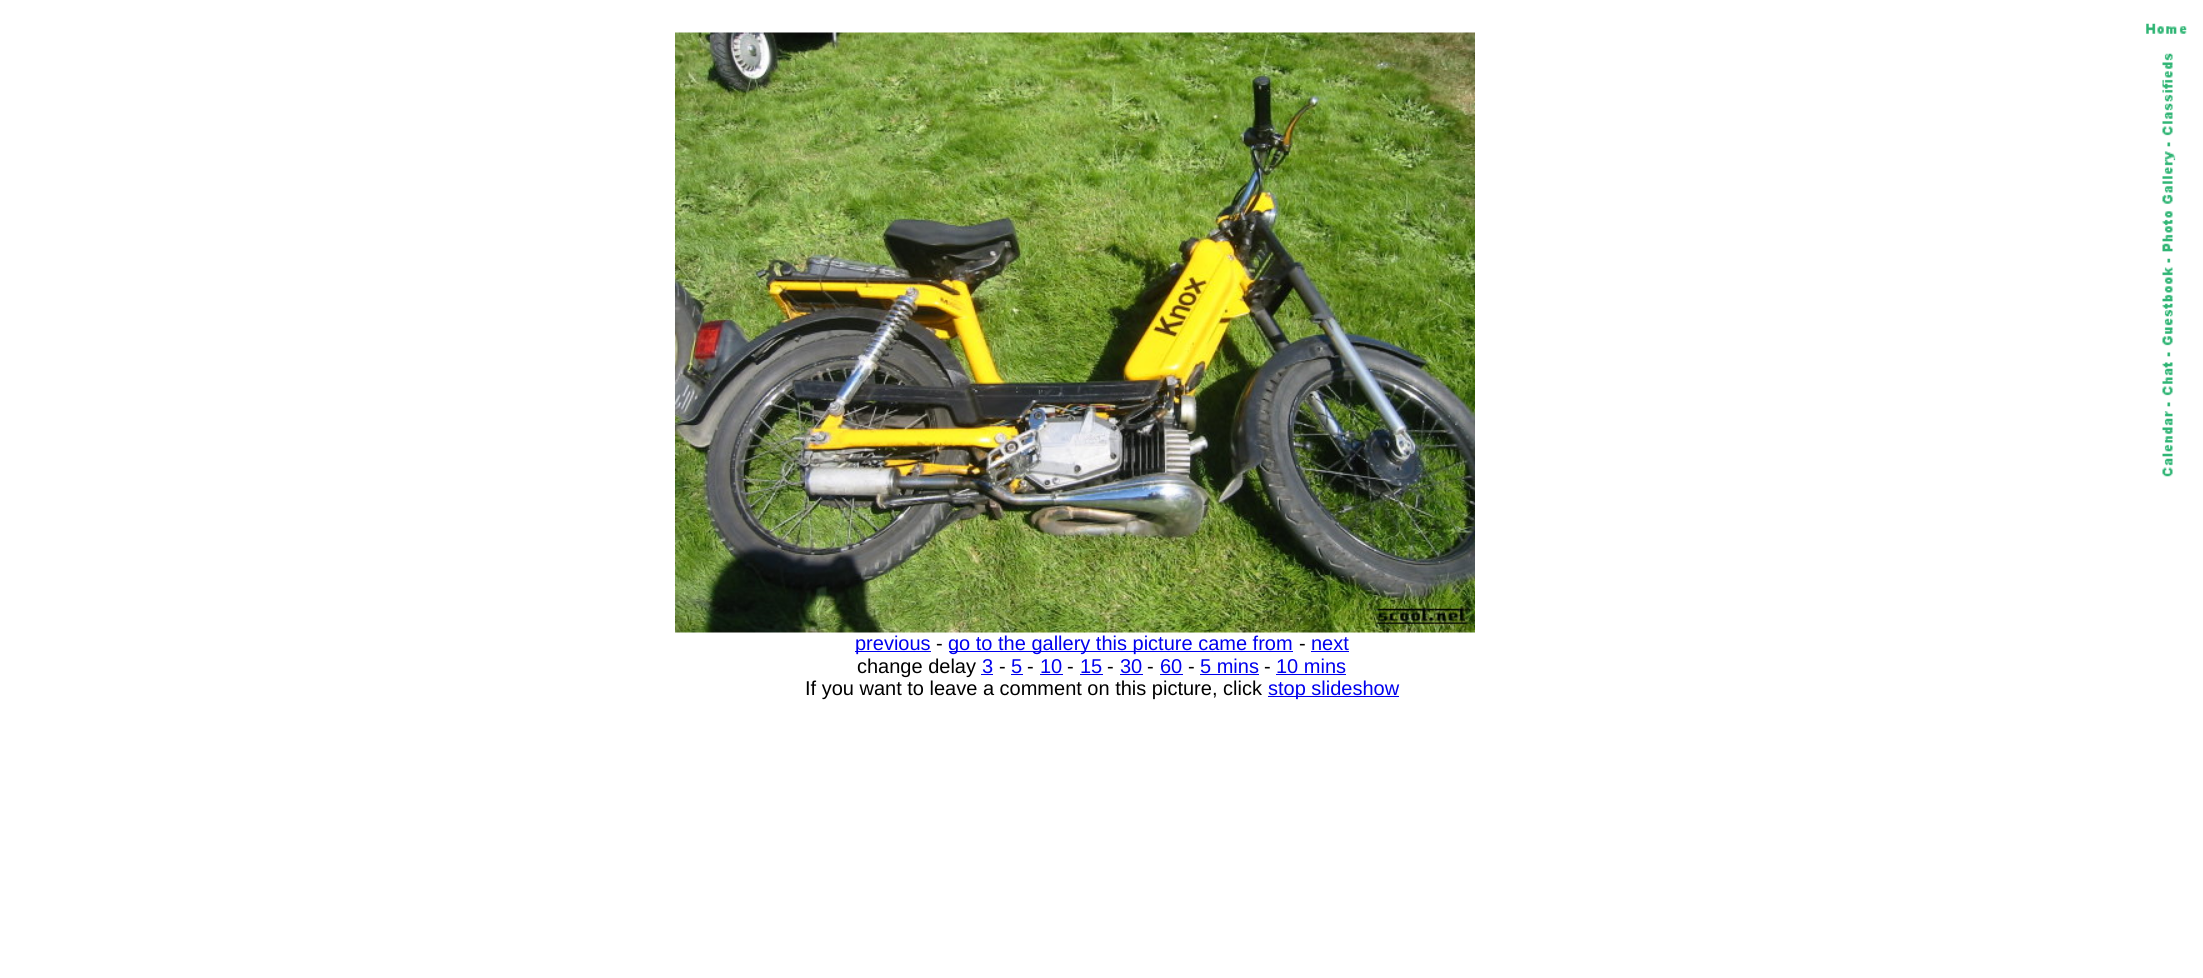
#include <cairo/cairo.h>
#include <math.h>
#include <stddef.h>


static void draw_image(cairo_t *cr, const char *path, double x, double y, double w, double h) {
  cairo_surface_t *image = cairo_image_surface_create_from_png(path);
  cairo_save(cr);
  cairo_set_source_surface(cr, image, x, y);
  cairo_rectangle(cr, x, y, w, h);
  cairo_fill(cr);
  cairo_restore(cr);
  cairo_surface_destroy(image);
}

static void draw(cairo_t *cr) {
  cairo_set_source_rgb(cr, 1, 1, 1);
  cairo_paint(cr);
  draw_image(cr, "images/1.png", 2146, 23, 41, 11);
  draw_image(cr, "images/2.png", 2162, 53, 14, 424);
  draw_image(cr, "images/3.png", 675, 32, 800, 601);
  cairo_set_source_rgb(cr, 0, 0, 238 / 255.0);
  cairo_rectangle(cr, 855, 651, 76, 1);
  cairo_fill(cr);
  cairo_rectangle(cr, 949, 651, 344, 1);
  cairo_fill(cr);
  cairo_rectangle(cr, 1311, 651, 38, 1);
  cairo_fill(cr);
  cairo_rectangle(cr, 981, 674, 12, 1);
  cairo_fill(cr);
  cairo_rectangle(cr, 1011, 674, 12, 1);
  cairo_fill(cr);
  cairo_rectangle(cr, 1040, 674, 23, 1);
  cairo_fill(cr);
  cairo_rectangle(cr, 1080, 674, 23, 1);
  cairo_fill(cr);
  cairo_rectangle(cr, 1120, 674, 23, 1);
  cairo_fill(cr);
  cairo_rectangle(cr, 1160, 674, 23, 1);
  cairo_fill(cr);
  cairo_rectangle(cr, 1200, 674, 59, 1);
  cairo_fill(cr);
  cairo_rectangle(cr, 1276, 674, 70, 1);
  cairo_fill(cr);
  cairo_rectangle(cr, 1268, 696, 131, 1);
  cairo_fill(cr);
  cairo_select_font_face(cr, "Liberation Sans", CAIRO_FONT_SLANT_NORMAL, CAIRO_FONT_WEIGHT_NORMAL);
  cairo_set_font_size(cr, 20);
  cairo_move_to(cr, 855, 650);
  cairo_show_text(cr, "previous");
  cairo_set_source_rgb(cr, 0, 0, 0);
  cairo_move_to(cr, 936, 650);
  cairo_show_text(cr, "-");
  cairo_set_source_rgb(cr, 0, 0, 238 / 255.0);
  cairo_move_to(cr, 948, 650);
  cairo_show_text(cr, "go to the gallery this picture came from");
  cairo_set_source_rgb(cr, 0, 0, 0);
  cairo_move_to(cr, 1299, 650);
  cairo_show_text(cr, "-");
  cairo_set_source_rgb(cr, 0, 0, 238 / 255.0);
  cairo_move_to(cr, 1311, 650);
  cairo_show_text(cr, "next");
  cairo_set_source_rgb(cr, 0, 0, 0);
  cairo_move_to(cr, 857, 673);
  cairo_show_text(cr, "change delay");
  cairo_set_source_rgb(cr, 0, 0, 238 / 255.0);
  cairo_move_to(cr, 982, 673);
  cairo_show_text(cr, "3");
  cairo_set_source_rgb(cr, 0, 0, 0);
  cairo_move_to(cr, 999, 673);
  cairo_show_text(cr, "-");
  cairo_set_source_rgb(cr, 0, 0, 238 / 255.0);
  cairo_move_to(cr, 1011, 673);
  cairo_show_text(cr, "5");
  cairo_set_source_rgb(cr, 0, 0, 0);
  cairo_move_to(cr, 1027, 673);
  cairo_show_text(cr, "-");
  cairo_set_source_rgb(cr, 0, 0, 238 / 255.0);
  cairo_move_to(cr, 1040, 673);
  cairo_show_text(cr, "10");
  cairo_set_source_rgb(cr, 0, 0, 0);
  cairo_move_to(cr, 1067, 673);
  cairo_show_text(cr, "-");
  cairo_set_source_rgb(cr, 0, 0, 238 / 255.0);
  cairo_move_to(cr, 1080, 673);
  cairo_show_text(cr, "15");
  cairo_set_source_rgb(cr, 0, 0, 0);
  cairo_move_to(cr, 1107, 673);
  cairo_show_text(cr, "-");
  cairo_set_source_rgb(cr, 0, 0, 238 / 255.0);
  cairo_move_to(cr, 1120, 673);
  cairo_show_text(cr, "30");
  cairo_set_source_rgb(cr, 0, 0, 0);
  cairo_move_to(cr, 1147, 673);
  cairo_show_text(cr, "-");
  cairo_set_source_rgb(cr, 0, 0, 238 / 255.0);
  cairo_move_to(cr, 1160, 673);
  cairo_show_text(cr, "60");
  cairo_set_source_rgb(cr, 0, 0, 0);
  cairo_move_to(cr, 1188, 673);
  cairo_show_text(cr, "-");
  cairo_set_source_rgb(cr, 0, 0, 238 / 255.0);
  cairo_move_to(cr, 1200, 673);
  cairo_show_text(cr, "5 mins");
  cairo_set_source_rgb(cr, 0, 0, 0);
  cairo_move_to(cr, 1264, 673);
  cairo_show_text(cr, "-");
  cairo_set_source_rgb(cr, 0, 0, 238 / 255.0);
  cairo_move_to(cr, 1276, 673);
  cairo_show_text(cr, "10 mins");
  cairo_set_source_rgb(cr, 0, 0, 0);
  cairo_move_to(cr, 805, 695);
  cairo_show_text(cr, "If you want to leave a comment on this picture, click");
  cairo_set_source_rgb(cr, 0, 0, 238 / 255.0);
  cairo_move_to(cr, 1268, 695);
  cairo_show_text(cr, "stop slideshow");
}

int main(void) {
  cairo_surface_t *surface = cairo_image_surface_create(CAIRO_FORMAT_RGB24, 2203, 978);
  cairo_t *cr = cairo_create(surface);
  cairo_font_options_t *options = cairo_font_options_create();
  cairo_font_options_set_hint_metrics(options, CAIRO_HINT_METRICS_OFF);
  cairo_font_options_set_hint_style(options, CAIRO_HINT_STYLE_NONE);
  cairo_set_font_options(cr, options);
  cairo_set_miter_limit(cr, 4);
  draw(cr);
  cairo_surface_write_to_png(surface, "out.png");
  cairo_font_options_destroy(options);
  cairo_destroy(cr);
  cairo_surface_destroy(surface);
  return 0;
}
